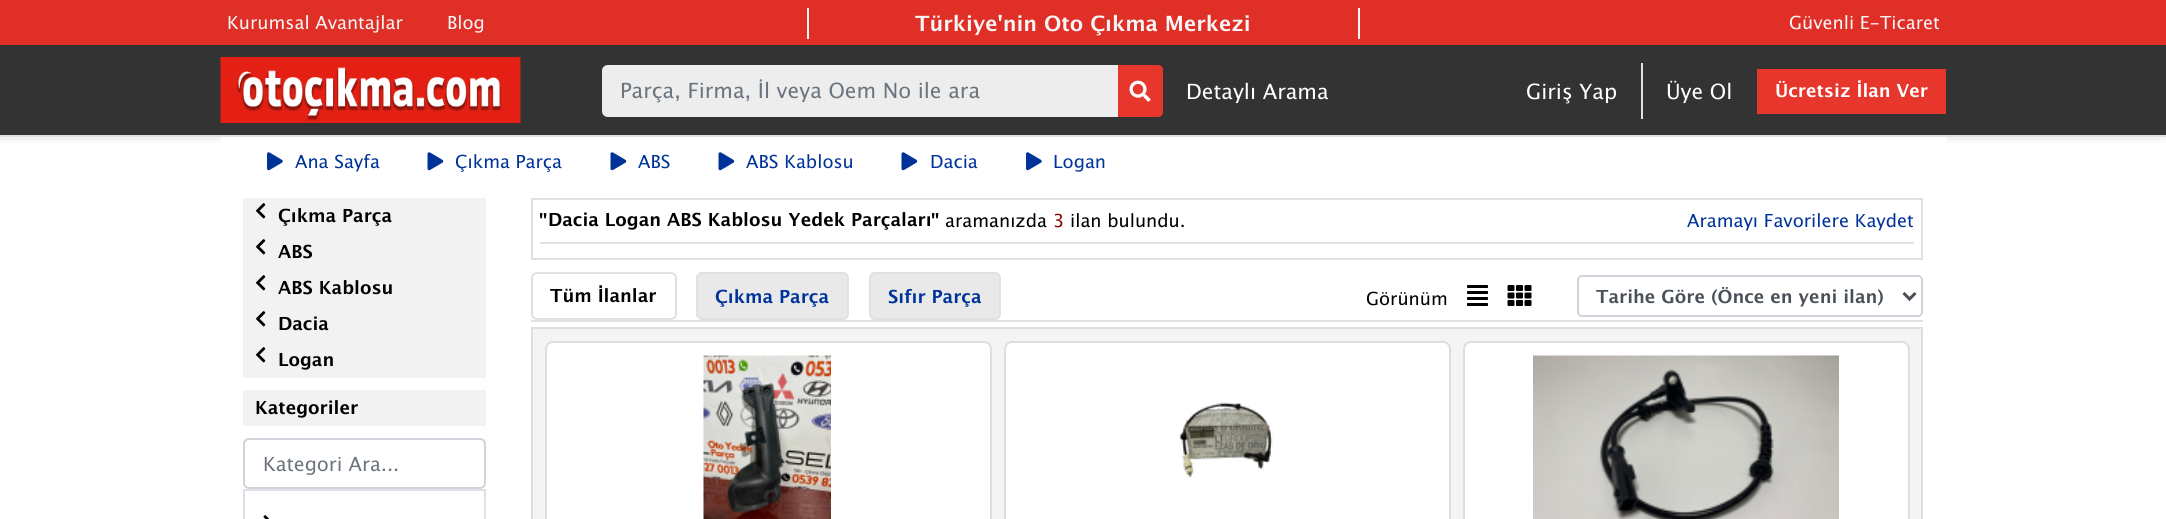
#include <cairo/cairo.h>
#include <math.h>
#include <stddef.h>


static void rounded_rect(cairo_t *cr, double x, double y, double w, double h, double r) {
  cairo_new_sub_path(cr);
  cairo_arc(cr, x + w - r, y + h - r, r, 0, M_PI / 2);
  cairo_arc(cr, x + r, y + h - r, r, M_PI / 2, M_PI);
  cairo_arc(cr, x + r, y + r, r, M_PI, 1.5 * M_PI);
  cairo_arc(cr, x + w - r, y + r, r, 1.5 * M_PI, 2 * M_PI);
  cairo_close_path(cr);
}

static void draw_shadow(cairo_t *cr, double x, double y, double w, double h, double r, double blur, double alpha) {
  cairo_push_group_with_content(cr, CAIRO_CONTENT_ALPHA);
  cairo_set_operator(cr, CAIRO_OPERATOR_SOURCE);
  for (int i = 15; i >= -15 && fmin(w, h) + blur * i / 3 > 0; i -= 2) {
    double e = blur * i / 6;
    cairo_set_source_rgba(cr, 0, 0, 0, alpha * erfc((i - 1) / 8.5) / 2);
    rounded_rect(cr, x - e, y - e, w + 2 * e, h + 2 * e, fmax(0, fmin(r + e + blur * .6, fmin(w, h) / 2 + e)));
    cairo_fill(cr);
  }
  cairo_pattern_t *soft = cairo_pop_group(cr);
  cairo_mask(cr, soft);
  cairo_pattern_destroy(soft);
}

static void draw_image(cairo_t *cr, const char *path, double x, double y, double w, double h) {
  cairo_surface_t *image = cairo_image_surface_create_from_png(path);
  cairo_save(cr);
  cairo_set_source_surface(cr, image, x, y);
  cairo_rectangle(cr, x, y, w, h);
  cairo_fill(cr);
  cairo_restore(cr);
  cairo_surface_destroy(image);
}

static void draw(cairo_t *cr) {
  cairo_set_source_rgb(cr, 1, 1, 1);
  cairo_paint(cr);
  cairo_set_source_rgb(cr, 0, 0, 0);
  draw_shadow(cr, 0, 3, 2166, 137, 0, 3, 0.07);
  cairo_set_source_rgb(cr, 51 / 255.0, 51 / 255.0, 51 / 255.0);
  cairo_rectangle(cr, 0, 45, 2166, 90);
  cairo_fill(cr);
  cairo_set_source_rgb(cr, 222 / 255.0, 226 / 255.0, 230 / 255.0);
  cairo_rectangle(cr, 0, 135, 2166, 2);
  cairo_fill(cr);
  cairo_set_source_rgb(cr, 224 / 255.0, 47 / 255.0, 39 / 255.0);
  cairo_rectangle(cr, 0, 0, 2166, 45);
  cairo_fill(cr);
  cairo_set_source_rgb(cr, 246 / 255.0, 246 / 255.0, 246 / 255.0);
  cairo_rectangle(cr, 1358, 8, 2, 31);
  cairo_fill(cr);
  cairo_rectangle(cr, 807, 8, 2, 31);
  cairo_fill(cr);
  draw_image(cr, "images/1.png", 220, 57, 301, 66);
  cairo_set_source_rgb(cr, 237 / 255.0, 237 / 255.0, 237 / 255.0);
  cairo_new_path(cr);
  cairo_move_to(cr, 608, 65);
  cairo_line_to(cr, 1119, 65);
  cairo_line_to(cr, 1119, 117);
  cairo_line_to(cr, 608, 117);
  cairo_curve_to(cr, 604.5, 117, 602, 114.5, 602, 111);
  cairo_line_to(cr, 602, 71);
  cairo_curve_to(cr, 602, 67.5, 604.5, 65, 608, 65);
  cairo_close_path(cr);
  cairo_fill(cr);
  cairo_set_source_rgb(cr, 231 / 255.0, 54 / 255.0, 44 / 255.0);
  cairo_new_path(cr);
  cairo_move_to(cr, 1118, 65);
  cairo_line_to(cr, 1158, 65);
  cairo_curve_to(cr, 1161, 65, 1163, 67, 1163, 70);
  cairo_line_to(cr, 1163, 112);
  cairo_curve_to(cr, 1163, 115, 1161, 117, 1158, 117);
  cairo_line_to(cr, 1118, 117);
  cairo_close_path(cr);
  cairo_fill(cr);
  draw_image(cr, "images/2.png", 1129, 80, 22, 22);
  cairo_set_source_rgb(cr, 222 / 255.0, 226 / 255.0, 230 / 255.0);
  cairo_rectangle(cr, 1641, 63, 2, 56);
  cairo_fill(cr);
  cairo_set_source_rgb(cr, 231 / 255.0, 54 / 255.0, 44 / 255.0);
  cairo_rectangle(cr, 1757, 69, 189, 45);
  cairo_fill(cr);
  cairo_set_source_rgb(cr, 1, 1, 1);
  cairo_rectangle(cr, 221, 137, 1725, 6);
  cairo_fill(cr);
  draw_image(cr, "images/3.png", 267, 152, 16, 19);
  draw_image(cr, "images/4.png", 427, 152, 17, 19);
  draw_image(cr, "images/4.png", 610, 152, 17, 19);
  draw_image(cr, "images/4.png", 718, 152, 17, 19);
  draw_image(cr, "images/4.png", 901, 152, 17, 19);
  draw_image(cr, "images/3.png", 1026, 152, 16, 19);
  cairo_set_source_rgb(cr, 242 / 255.0, 242 / 255.0, 242 / 255.0);
  cairo_rectangle(cr, 243, 198, 243, 180);
  cairo_fill(cr);
  draw_image(cr, "images/5.png", 256, 203, 10, 16);
  draw_image(cr, "images/5.png", 256, 239, 10, 16);
  draw_image(cr, "images/5.png", 256, 275, 10, 16);
  draw_image(cr, "images/5.png", 256, 311, 10, 16);
  draw_image(cr, "images/5.png", 256, 347, 10, 16);
  cairo_rectangle(cr, 243, 390, 243, 36);
  cairo_fill(cr);
  rounded_rect(cr, 244, 439, 241, 49, 5);
  cairo_set_source_rgb(cr, 206 / 255.0, 212 / 255.0, 218 / 255.0);
  cairo_stroke(cr);
  cairo_rectangle(cr, 244, 490, 241, 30);
  cairo_set_source_rgb(cr, 222 / 255.0, 226 / 255.0, 230 / 255.0);
  cairo_stroke(cr);
  draw_image(cr, "images/6.png", 263, 515, 7, 4);
  cairo_rectangle(cr, 532, 199, 1390, 60);
  cairo_stroke(cr);
  cairo_rectangle(cr, 540, 242, 1374, 2);
  cairo_fill(cr);
  cairo_rectangle(cr, 531, 320, 1392, 2);
  cairo_fill(cr);
  rounded_rect(cr, 532, 273, 144, 46, 5);
  cairo_stroke(cr);
  cairo_set_source_rgb(cr, 233 / 255.0, 233 / 255.0, 233 / 255.0);
  rounded_rect(cr, 697, 273, 151, 46, 5);
  cairo_fill_preserve(cr);
  cairo_set_source_rgb(cr, 222 / 255.0, 226 / 255.0, 230 / 255.0);
  cairo_stroke(cr);
  cairo_set_source_rgb(cr, 233 / 255.0, 233 / 255.0, 233 / 255.0);
  rounded_rect(cr, 870, 273, 130, 46, 5);
  cairo_fill_preserve(cr);
  cairo_set_source_rgb(cr, 222 / 255.0, 226 / 255.0, 230 / 255.0);
  cairo_stroke(cr);
  draw_image(cr, "images/7.png", 1467, 285, 21, 21);
  draw_image(cr, "images/8.png", 1507, 285, 25, 21);
  rounded_rect(cr, 1578, 276, 344, 40, 4);
  cairo_set_source_rgb(cr, 206 / 255.0, 212 / 255.0, 218 / 255.0);
  cairo_stroke(cr);
  cairo_new_path(cr);
  cairo_move_to(cr, 1903.5, 293);
  cairo_line_to(cr, 1909.5, 299);
  cairo_line_to(cr, 1915.5, 293);
  cairo_set_source_rgb(cr, 73 / 255.0, 80 / 255.0, 87 / 255.0);
  cairo_set_line_width(cr, 3);
  cairo_stroke(cr);
  cairo_set_source_rgb(cr, 244 / 255.0, 244 / 255.0, 244 / 255.0);
  cairo_rectangle(cr, 532, 328, 1390, 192);
  cairo_fill_preserve(cr);
  cairo_set_source_rgb(cr, 222 / 255.0, 222 / 255.0, 222 / 255.0);
  cairo_set_line_width(cr, 2);
  cairo_stroke(cr);
  cairo_set_source_rgb(cr, 1, 1, 1);
  rounded_rect(cr, 546, 342, 445, 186, 7);
  cairo_fill_preserve(cr);
  cairo_set_source_rgb(cr, 222 / 255.0, 222 / 255.0, 222 / 255.0);
  cairo_stroke(cr);
  draw_image(cr, "images/9.png", 703, 355, 128, 164);
  cairo_set_source_rgb(cr, 1, 1, 1);
  rounded_rect(cr, 1005, 342, 445, 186, 7);
  cairo_fill_preserve(cr);
  cairo_set_source_rgb(cr, 222 / 255.0, 222 / 255.0, 222 / 255.0);
  cairo_stroke(cr);
  draw_image(cr, "images/10.png", 1179, 402, 94, 76);
  cairo_set_source_rgb(cr, 1, 1, 1);
  rounded_rect(cr, 1464, 342, 445, 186, 7);
  cairo_fill_preserve(cr);
  cairo_set_source_rgb(cr, 222 / 255.0, 222 / 255.0, 222 / 255.0);
  cairo_stroke(cr);
  draw_image(cr, "images/11.png", 1533, 355, 306, 164);
  cairo_select_font_face(cr, "Lucida Grande Medium", CAIRO_FONT_SLANT_NORMAL, CAIRO_FONT_WEIGHT_NORMAL);
  cairo_set_font_size(cr, 18);
  cairo_set_source_rgb(cr, 246 / 255.0, 246 / 255.0, 246 / 255.0);
  cairo_move_to(cr, 227, 29);
  cairo_show_text(cr, "Kurumsal Avantajlar");
  cairo_move_to(cr, 447, 29);
  cairo_show_text(cr, "Blog");
  cairo_select_font_face(cr, "Lucida Grande", CAIRO_FONT_SLANT_NORMAL, CAIRO_FONT_WEIGHT_BOLD);
  cairo_set_font_size(cr, 21);
  cairo_move_to(cr, 915, 31);
  cairo_show_text(cr, "Türkiye'nin Oto Çıkma Merkezi");
  cairo_select_font_face(cr, "Lucida Grande Medium", CAIRO_FONT_SLANT_NORMAL, CAIRO_FONT_WEIGHT_NORMAL);
  cairo_set_font_size(cr, 18);
  cairo_move_to(cr, 1789, 29);
  cairo_show_text(cr, "Güvenli E-Ticaret");
  cairo_set_font_size(cr, 21);
  cairo_set_source_rgb(cr, 108 / 255.0, 117 / 255.0, 125 / 255.0);
  cairo_move_to(cr, 620, 98);
  cairo_show_text(cr, "Parça, Firma, İl veya Oem No ile ara");
  cairo_set_source_rgb(cr, 1, 1, 1);
  cairo_move_to(cr, 1186, 99);
  cairo_show_text(cr, "Detaylı Arama");
  cairo_move_to(cr, 1526, 99);
  cairo_show_text(cr, "Giriş Yap");
  cairo_move_to(cr, 1666, 99);
  cairo_show_text(cr, "Üye Ol");
  cairo_select_font_face(cr, "Lucida Grande", CAIRO_FONT_SLANT_NORMAL, CAIRO_FONT_WEIGHT_BOLD);
  cairo_set_font_size(cr, 18);
  cairo_move_to(cr, 1775, 97);
  cairo_show_text(cr, "Ücretsiz İlan Ver");
  cairo_select_font_face(cr, "Lucida Grande Medium", CAIRO_FONT_SLANT_NORMAL, CAIRO_FONT_WEIGHT_NORMAL);
  cairo_set_source_rgb(cr, 0, 51 / 255.0, 153 / 255.0);
  cairo_move_to(cr, 295, 168);
  cairo_show_text(cr, "Ana Sayfa");
  cairo_move_to(cr, 455, 168);
  cairo_show_text(cr, "Çıkma Parça");
  cairo_move_to(cr, 638, 168);
  cairo_show_text(cr, "ABS");
  cairo_move_to(cr, 746, 168);
  cairo_show_text(cr, "ABS Kablosu");
  cairo_move_to(cr, 930, 168);
  cairo_show_text(cr, "Dacia");
  cairo_move_to(cr, 1053, 168);
  cairo_show_text(cr, "Logan");
  cairo_select_font_face(cr, "Lucida Grande", CAIRO_FONT_SLANT_NORMAL, CAIRO_FONT_WEIGHT_BOLD);
  cairo_set_source_rgb(cr, 0, 0, 0);
  cairo_move_to(cr, 278, 222);
  cairo_show_text(cr, "Çıkma Parça");
  cairo_move_to(cr, 278, 258);
  cairo_show_text(cr, "ABS");
  cairo_move_to(cr, 278, 294);
  cairo_show_text(cr, "ABS Kablosu");
  cairo_move_to(cr, 278, 330);
  cairo_show_text(cr, "Dacia");
  cairo_move_to(cr, 278, 366);
  cairo_show_text(cr, "Logan");
  cairo_move_to(cr, 255, 414);
  cairo_show_text(cr, "Kategoriler");
  cairo_select_font_face(cr, "Lucida Grande Medium", CAIRO_FONT_SLANT_NORMAL, CAIRO_FONT_WEIGHT_NORMAL);
  cairo_set_font_size(cr, 19.5);
  cairo_set_source_rgb(cr, 108 / 255.0, 117 / 255.0, 125 / 255.0);
  cairo_move_to(cr, 263, 471);
  cairo_show_text(cr, "Kategori Ara...");
  cairo_select_font_face(cr, "Lucida Grande", CAIRO_FONT_SLANT_NORMAL, CAIRO_FONT_WEIGHT_BOLD);
  cairo_set_font_size(cr, 18);
  cairo_set_source_rgb(cr, 0, 0, 0);
  cairo_move_to(cr, 539, 227);
  cairo_show_text(cr, "\"");
  cairo_move_to(cr, 548, 226);
  cairo_show_text(cr, "Dacia Logan ABS Kablosu Yedek Parçaları");
  cairo_move_to(cr, 931, 227);
  cairo_show_text(cr, "\"");
  cairo_select_font_face(cr, "Lucida Grande Medium", CAIRO_FONT_SLANT_NORMAL, CAIRO_FONT_WEIGHT_NORMAL);
  cairo_move_to(cr, 945, 227);
  cairo_show_text(cr, "aramanızda");
  cairo_set_source_rgb(cr, 143 / 255.0, 1 / 255.0, 0);
  cairo_move_to(cr, 1053, 227);
  cairo_show_text(cr, "3");
  cairo_set_source_rgb(cr, 0, 0, 0);
  cairo_move_to(cr, 1070, 227);
  cairo_show_text(cr, "ilan bulundu.");
  cairo_set_source_rgb(cr, 0, 51 / 255.0, 153 / 255.0);
  cairo_move_to(cr, 1687, 227);
  cairo_show_text(cr, "Aramayı Favorilere Kaydet");
  cairo_select_font_face(cr, "Lucida Grande", CAIRO_FONT_SLANT_NORMAL, CAIRO_FONT_WEIGHT_BOLD);
  cairo_set_source_rgb(cr, 0, 0, 0);
  cairo_move_to(cr, 550, 302);
  cairo_show_text(cr, "Tüm İlanlar");
  cairo_set_source_rgb(cr, 0, 51 / 255.0, 153 / 255.0);
  cairo_move_to(cr, 715, 303);
  cairo_show_text(cr, "Çıkma Parça");
  cairo_move_to(cr, 888, 303);
  cairo_show_text(cr, "Sıfır Parça");
  cairo_select_font_face(cr, "Lucida Grande Medium", CAIRO_FONT_SLANT_NORMAL, CAIRO_FONT_WEIGHT_NORMAL);
  cairo_set_source_rgb(cr, 0, 0, 0);
  cairo_move_to(cr, 1366, 305);
  cairo_show_text(cr, "Görünüm");
  cairo_select_font_face(cr, "Lucida Grande", CAIRO_FONT_SLANT_NORMAL, CAIRO_FONT_WEIGHT_BOLD);
  cairo_set_source_rgb(cr, 73 / 255.0, 80 / 255.0, 87 / 255.0);
  cairo_move_to(cr, 1596, 303);
  cairo_show_text(cr, "Tarihe Göre (Önce en yeni ilan)");
}

int main(void) {
  cairo_surface_t *surface = cairo_image_surface_create(CAIRO_FORMAT_RGB24, 2166, 519);
  cairo_t *cr = cairo_create(surface);
  cairo_font_options_t *options = cairo_font_options_create();
  cairo_font_options_set_hint_metrics(options, CAIRO_HINT_METRICS_OFF);
  cairo_font_options_set_hint_style(options, CAIRO_HINT_STYLE_NONE);
  cairo_set_font_options(cr, options);
  cairo_set_miter_limit(cr, 4);
  draw(cr);
  cairo_surface_write_to_png(surface, "out.png");
  cairo_font_options_destroy(options);
  cairo_destroy(cr);
  cairo_surface_destroy(surface);
  return 0;
}
